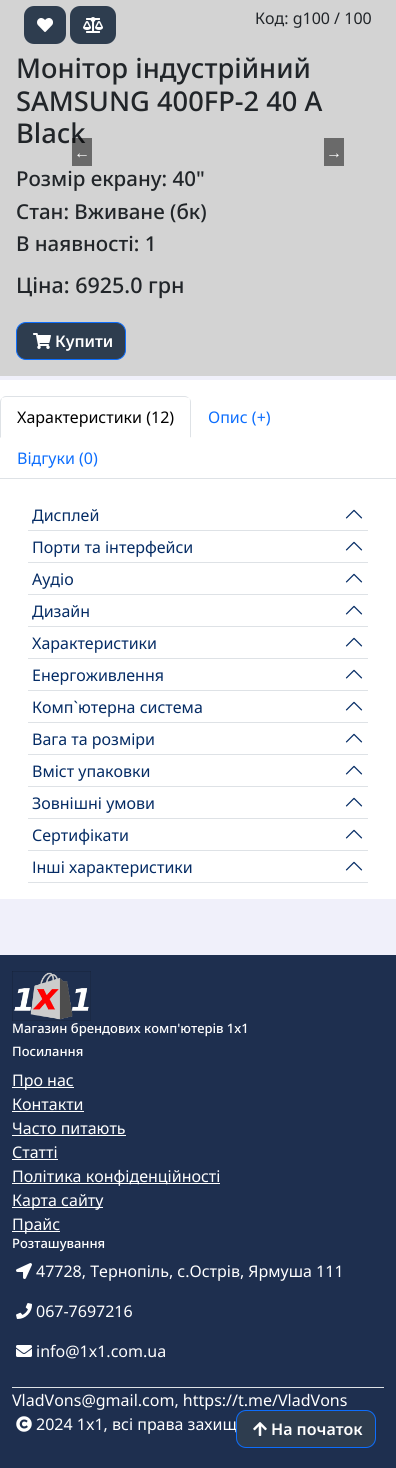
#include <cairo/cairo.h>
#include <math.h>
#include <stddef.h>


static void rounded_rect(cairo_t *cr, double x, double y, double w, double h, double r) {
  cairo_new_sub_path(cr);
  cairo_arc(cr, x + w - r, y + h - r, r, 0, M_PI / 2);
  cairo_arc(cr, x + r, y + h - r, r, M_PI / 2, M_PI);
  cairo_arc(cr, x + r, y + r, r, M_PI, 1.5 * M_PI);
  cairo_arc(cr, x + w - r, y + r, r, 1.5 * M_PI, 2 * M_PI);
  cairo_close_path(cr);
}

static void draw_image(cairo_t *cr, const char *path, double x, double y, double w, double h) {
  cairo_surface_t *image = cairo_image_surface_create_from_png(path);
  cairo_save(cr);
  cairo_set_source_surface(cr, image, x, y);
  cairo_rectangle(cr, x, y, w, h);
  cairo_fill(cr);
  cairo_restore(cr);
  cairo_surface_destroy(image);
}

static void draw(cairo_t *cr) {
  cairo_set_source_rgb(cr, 240 / 255.0, 240 / 255.0, 250 / 255.0);
  cairo_paint(cr);
  cairo_set_source_rgb(cr, 211 / 255.0, 211 / 255.0, 211 / 255.0);
  cairo_rectangle(cr, 0, 0, 396, 376);
  cairo_fill(cr);
  cairo_set_source_rgb(cr, 46 / 255.0, 61 / 255.0, 79 / 255.0);
  rounded_rect(cr, 24, 6, 42, 38, 10);
  cairo_fill(cr);
  draw_image(cr, "images/1.png", 37, 18, 16, 14);
  rounded_rect(cr, 70, 6, 46, 38, 10);
  cairo_fill(cr);
  draw_image(cr, "images/2.png", 83, 17, 20, 16);
  rounded_rect(cr, 16.5, 322.5, 109, 37, 9.5);
  cairo_fill_preserve(cr);
  cairo_set_source_rgb(cr, 13 / 255.0, 110 / 255.0, 253 / 255.0);
  cairo_set_line_width(cr, 1);
  cairo_stroke(cr);
  draw_image(cr, "images/3.png", 33, 333, 18, 16);
  cairo_set_source_rgb(cr, 106 / 255.0, 106 / 255.0, 106 / 255.0);
  cairo_rectangle(cr, 324, 138, 20, 28);
  cairo_fill(cr);
  cairo_set_source_rgb(cr, 1, 1, 1);
  cairo_rectangle(cr, 0, 380, 396, 519);
  cairo_fill(cr);
  cairo_set_source_rgb(cr, 222 / 255.0, 226 / 255.0, 230 / 255.0);
  cairo_rectangle(cr, 0, 478, 396, 1);
  cairo_fill(cr);
  cairo_new_path(cr);
  cairo_move_to(cr, 6, 396);
  cairo_curve_to(cr, 4, 396, 3, 397, 2, 398);
  cairo_curve_to(cr, 3, 398, 4, 397, 6, 397);
  cairo_line_to(cr, 185, 397);
  cairo_curve_to(cr, 186, 397, 188, 398, 189, 398);
  cairo_curve_to(cr, 188, 397, 186, 396, 185, 396);
  cairo_close_path(cr);
  cairo_fill(cr);
  cairo_new_path(cr);
  cairo_move_to(cr, 191, 438);
  cairo_line_to(cr, 191, 402);
  cairo_curve_to(cr, 191, 400, 190, 399, 189, 398);
  cairo_curve_to(cr, 190, 399, 190, 400, 190, 402);
  cairo_line_to(cr, 190, 437);
  cairo_close_path(cr);
  cairo_fill(cr);
  cairo_set_source_rgb(cr, 1, 1, 1);
  cairo_new_path(cr);
  cairo_move_to(cr, 191, 438);
  cairo_line_to(cr, 190, 437);
  cairo_line_to(cr, 1, 437);
  cairo_line_to(cr, 0, 438);
  cairo_close_path(cr);
  cairo_fill(cr);
  cairo_set_source_rgb(cr, 222 / 255.0, 226 / 255.0, 230 / 255.0);
  cairo_new_path(cr);
  cairo_move_to(cr, 0, 438);
  cairo_line_to(cr, 1, 437);
  cairo_line_to(cr, 1, 402);
  cairo_curve_to(cr, 1, 400, 2, 399, 2, 398);
  cairo_curve_to(cr, 1, 399, 0, 400, 0, 402);
  cairo_close_path(cr);
  cairo_fill(cr);
  cairo_rectangle(cr, 28, 530, 340, 1);
  cairo_fill(cr);
  draw_image(cr, "images/4.png", 345, 509, 18, 10);
  cairo_rectangle(cr, 28, 562, 340, 1);
  cairo_fill(cr);
  draw_image(cr, "images/4.png", 345, 541, 18, 10);
  cairo_rectangle(cr, 28, 594, 340, 1);
  cairo_fill(cr);
  draw_image(cr, "images/4.png", 345, 573, 18, 10);
  cairo_rectangle(cr, 28, 626, 340, 1);
  cairo_fill(cr);
  draw_image(cr, "images/4.png", 345, 605, 18, 10);
  cairo_rectangle(cr, 28, 658, 340, 1);
  cairo_fill(cr);
  draw_image(cr, "images/4.png", 345, 637, 18, 10);
  cairo_rectangle(cr, 28, 690, 340, 1);
  cairo_fill(cr);
  draw_image(cr, "images/4.png", 345, 669, 18, 10);
  cairo_rectangle(cr, 28, 722, 340, 1);
  cairo_fill(cr);
  draw_image(cr, "images/4.png", 345, 701, 18, 10);
  cairo_rectangle(cr, 28, 754, 340, 1);
  cairo_fill(cr);
  draw_image(cr, "images/4.png", 345, 733, 18, 10);
  cairo_rectangle(cr, 28, 786, 340, 1);
  cairo_fill(cr);
  draw_image(cr, "images/4.png", 345, 765, 18, 10);
  cairo_rectangle(cr, 28, 818, 340, 1);
  cairo_fill(cr);
  draw_image(cr, "images/4.png", 345, 797, 18, 10);
  cairo_rectangle(cr, 28, 850, 340, 1);
  cairo_fill(cr);
  draw_image(cr, "images/4.png", 345, 829, 18, 10);
  cairo_rectangle(cr, 28, 882, 340, 1);
  cairo_fill(cr);
  draw_image(cr, "images/4.png", 345, 861, 18, 10);
  cairo_set_source_rgb(cr, 30 / 255.0, 47 / 255.0, 79 / 255.0);
  cairo_rectangle(cr, 0, 955, 396, 513);
  cairo_fill(cr);
  draw_image(cr, "images/5.png", 12, 971, 79, 50);
  cairo_set_source_rgb(cr, 1, 1, 1);
  cairo_rectangle(cr, 12, 1087, 62, 1);
  cairo_fill(cr);
  cairo_rectangle(cr, 12, 1111, 72, 1);
  cairo_fill(cr);
  cairo_rectangle(cr, 12, 1135, 114, 1);
  cairo_fill(cr);
  cairo_rectangle(cr, 12, 1159, 46, 1);
  cairo_fill(cr);
  cairo_rectangle(cr, 12, 1183, 208, 1);
  cairo_fill(cr);
  cairo_rectangle(cr, 12, 1207, 91, 1);
  cairo_fill(cr);
  cairo_rectangle(cr, 12, 1231, 48, 1);
  cairo_fill(cr);
  draw_image(cr, "images/6.png", 16, 1263, 16, 16);
  draw_image(cr, "images/7.png", 16, 1303, 16, 16);
  draw_image(cr, "images/8.png", 16, 1345, 16, 12);
  cairo_set_source_rgb(cr, 222 / 255.0, 226 / 255.0, 230 / 255.0);
  cairo_rectangle(cr, 12, 1387, 372, 1);
  cairo_fill(cr);
  draw_image(cr, "images/9.png", 16, 1416, 16, 16);
  cairo_select_font_face(cr, "Noto Sans", CAIRO_FONT_SLANT_NORMAL, CAIRO_FONT_WEIGHT_NORMAL);
  cairo_set_font_size(cr, 16);
  cairo_set_source_rgb(cr, 33 / 255.0, 37 / 255.0, 41 / 255.0);
  cairo_move_to(cr, 255, 24);
  cairo_show_text(cr, "Код: g100 / 100");
  cairo_select_font_face(cr, "Noto Sans Medium", CAIRO_FONT_SLANT_NORMAL, CAIRO_FONT_WEIGHT_NORMAL);
  cairo_set_font_size(cr, 27.25);
  cairo_move_to(cr, 16, 78);
  cairo_show_text(cr, "Монітор індустрійний");
  cairo_move_to(cr, 16, 111);
  cairo_show_text(cr, "SAMSUNG 400FP-2 40 A");
  cairo_move_to(cr, 16, 143);
  cairo_show_text(cr, "Black");
  cairo_set_font_size(cr, 20.5);
  cairo_move_to(cr, 16, 186);
  cairo_show_text(cr, "Розмір екрану: 40\"");
  cairo_move_to(cr, 16, 219);
  cairo_show_text(cr, "Стан: Вживане (бк)");
  cairo_move_to(cr, 16, 251);
  cairo_show_text(cr, "В наявності: 1");
  cairo_set_font_size(cr, 21.5);
  cairo_move_to(cr, 16, 293);
  cairo_show_text(cr, "Ціна: 6925.0 грн");
  cairo_select_font_face(cr, "Noto Sans SemiBold", CAIRO_FONT_SLANT_NORMAL, CAIRO_FONT_WEIGHT_NORMAL);
  cairo_set_font_size(cr, 16);
  cairo_set_source_rgb(cr, 1, 1, 1);
  cairo_move_to(cr, 55, 347);
  cairo_show_text(cr, "Купити");
  cairo_set_source_rgba(cr, 0, 0, 0, 0.5);
  cairo_rectangle(cr, 72, 138, 20, 28);
  cairo_fill(cr);
  cairo_select_font_face(cr, "Liberation Sans", CAIRO_FONT_SLANT_NORMAL, CAIRO_FONT_WEIGHT_NORMAL);
  cairo_set_source_rgb(cr, 1, 1, 1);
  cairo_move_to(cr, 74, 158);
  cairo_show_text(cr, "←");
  cairo_move_to(cr, 326, 158);
  cairo_show_text(cr, "→");
  cairo_select_font_face(cr, "Noto Sans", CAIRO_FONT_SLANT_NORMAL, CAIRO_FONT_WEIGHT_NORMAL);
  cairo_set_source_rgb(cr, 0, 0, 0);
  cairo_move_to(cr, 17, 423);
  cairo_show_text(cr, "Характеристики (12)");
  cairo_set_source_rgb(cr, 13 / 255.0, 110 / 255.0, 253 / 255.0);
  cairo_move_to(cr, 208, 423);
  cairo_show_text(cr, "Опис (+)");
  cairo_move_to(cr, 17, 464);
  cairo_show_text(cr, "Відгуки (0)");
  cairo_set_source_rgb(cr, 5 / 255.0, 44 / 255.0, 101 / 255.0);
  cairo_move_to(cr, 32, 521);
  cairo_show_text(cr, "Дисплей");
  cairo_move_to(cr, 32, 553);
  cairo_show_text(cr, "Порти та інтерфейси");
  cairo_move_to(cr, 32, 585);
  cairo_show_text(cr, "Аудіо");
  cairo_move_to(cr, 32, 617);
  cairo_show_text(cr, "Дизайн");
  cairo_move_to(cr, 32, 649);
  cairo_show_text(cr, "Характеристики");
  cairo_move_to(cr, 32, 681);
  cairo_show_text(cr, "Енергоживлення");
  cairo_move_to(cr, 32, 713);
  cairo_show_text(cr, "Комп`ютерна система");
  cairo_move_to(cr, 32, 745);
  cairo_show_text(cr, "Вага та розміри");
  cairo_move_to(cr, 32, 777);
  cairo_show_text(cr, "Вміст упаковки");
  cairo_move_to(cr, 32, 809);
  cairo_show_text(cr, "Зовнішні умови");
  cairo_move_to(cr, 32, 841);
  cairo_show_text(cr, "Сертифікати");
  cairo_move_to(cr, 32, 873);
  cairo_show_text(cr, "Інші характеристики");
  cairo_select_font_face(cr, "Noto Sans Medium", CAIRO_FONT_SLANT_NORMAL, CAIRO_FONT_WEIGHT_NORMAL);
  cairo_set_font_size(cr, 13);
  cairo_set_source_rgb(cr, 1, 1, 1);
  cairo_move_to(cr, 12, 1033);
  cairo_show_text(cr, "Магазин брендових комп'ютерів 1х1");
  cairo_move_to(cr, 12, 1056);
  cairo_show_text(cr, "Посилання");
  cairo_select_font_face(cr, "Noto Sans", CAIRO_FONT_SLANT_NORMAL, CAIRO_FONT_WEIGHT_NORMAL);
  cairo_set_font_size(cr, 16);
  cairo_move_to(cr, 12, 1086);
  cairo_show_text(cr, "Про нас");
  cairo_move_to(cr, 12, 1110);
  cairo_show_text(cr, "Контакти");
  cairo_move_to(cr, 12, 1134);
  cairo_show_text(cr, "Часто питають");
  cairo_move_to(cr, 12, 1158);
  cairo_show_text(cr, "Статті");
  cairo_move_to(cr, 12, 1182);
  cairo_show_text(cr, "Політика конфіденційності");
  cairo_move_to(cr, 12, 1206);
  cairo_show_text(cr, "Карта сайту");
  cairo_move_to(cr, 12, 1230);
  cairo_show_text(cr, "Прайс");
  cairo_select_font_face(cr, "Noto Sans Medium", CAIRO_FONT_SLANT_NORMAL, CAIRO_FONT_WEIGHT_NORMAL);
  cairo_set_font_size(cr, 13);
  cairo_move_to(cr, 12, 1248);
  cairo_show_text(cr, "Розташування");
  cairo_select_font_face(cr, "Noto Sans", CAIRO_FONT_SLANT_NORMAL, CAIRO_FONT_WEIGHT_NORMAL);
  cairo_set_font_size(cr, 16);
  cairo_move_to(cr, 36, 1277);
  cairo_show_text(cr, "47728, Тернопіль, с.Острів, Ярмуша 111");
  cairo_move_to(cr, 36, 1317);
  cairo_show_text(cr, "067-7697216");
  cairo_move_to(cr, 36, 1357);
  cairo_show_text(cr, "info@1x1.com.ua");
  cairo_move_to(cr, 12, 1406);
  cairo_show_text(cr, "VladVons@gmail.com, https://t.me/VladVons");
  cairo_move_to(cr, 36, 1430);
  cairo_show_text(cr, "2024 1x1, всі права захищ");
  cairo_set_source_rgb(cr, 46 / 255.0, 61 / 255.0, 79 / 255.0);
  rounded_rect(cr, 236.5, 1410.5, 139, 37, 9.5);
  cairo_fill_preserve(cr);
  cairo_set_source_rgb(cr, 13 / 255.0, 110 / 255.0, 253 / 255.0);
  cairo_stroke(cr);
  draw_image(cr, "images/10.png", 253, 1422, 14, 14);
  cairo_select_font_face(cr, "Noto Sans SemiBold", CAIRO_FONT_SLANT_NORMAL, CAIRO_FONT_WEIGHT_NORMAL);
  cairo_set_source_rgb(cr, 1, 1, 1);
  cairo_move_to(cr, 271, 1435);
  cairo_show_text(cr, "На початок");
}

int main(void) {
  cairo_surface_t *surface = cairo_image_surface_create(CAIRO_FORMAT_RGB24, 396, 1468);
  cairo_t *cr = cairo_create(surface);
  cairo_font_options_t *options = cairo_font_options_create();
  cairo_font_options_set_hint_metrics(options, CAIRO_HINT_METRICS_OFF);
  cairo_font_options_set_hint_style(options, CAIRO_HINT_STYLE_NONE);
  cairo_set_font_options(cr, options);
  cairo_set_miter_limit(cr, 4);
  draw(cr);
  cairo_surface_write_to_png(surface, "out.png");
  cairo_font_options_destroy(options);
  cairo_destroy(cr);
  cairo_surface_destroy(surface);
  return 0;
}
